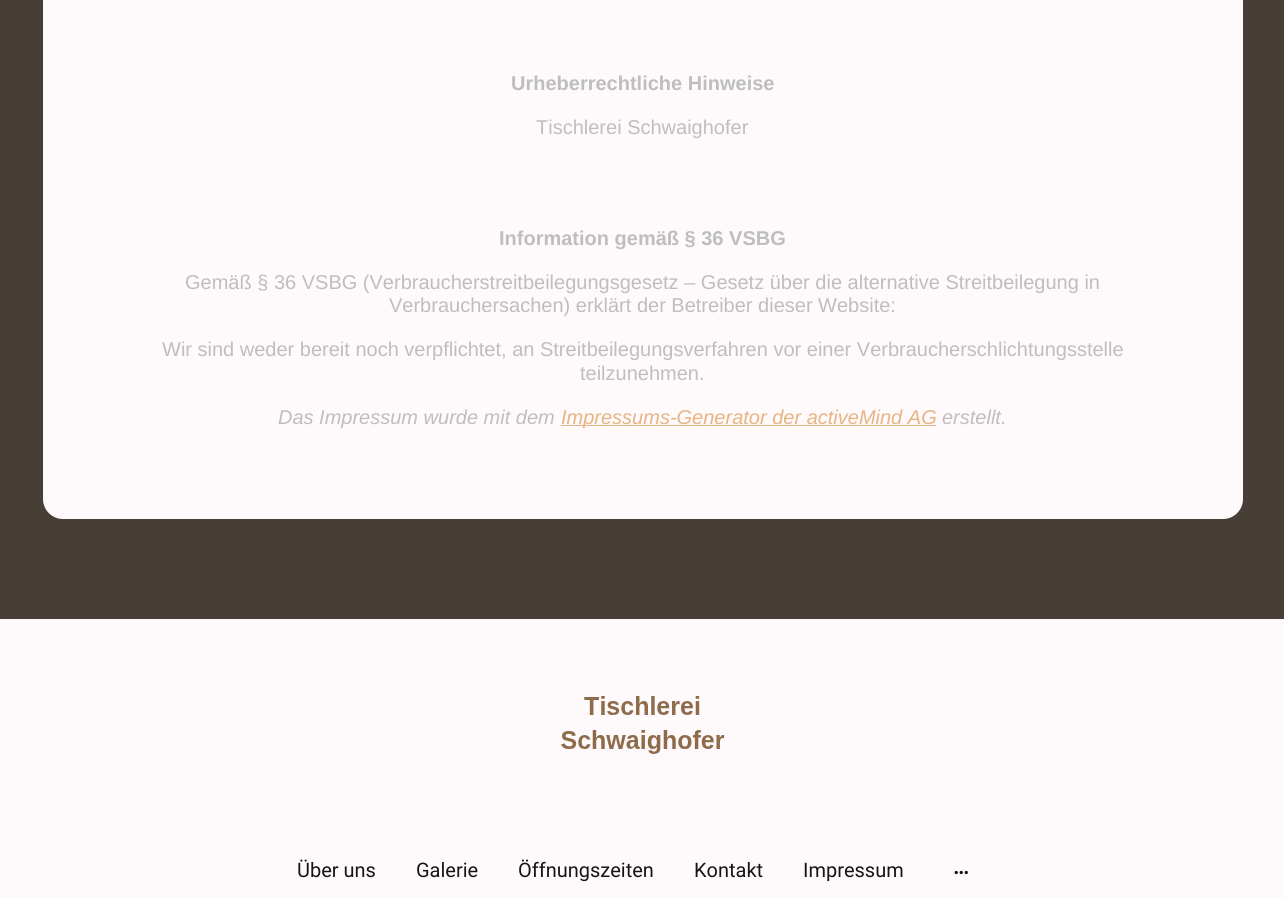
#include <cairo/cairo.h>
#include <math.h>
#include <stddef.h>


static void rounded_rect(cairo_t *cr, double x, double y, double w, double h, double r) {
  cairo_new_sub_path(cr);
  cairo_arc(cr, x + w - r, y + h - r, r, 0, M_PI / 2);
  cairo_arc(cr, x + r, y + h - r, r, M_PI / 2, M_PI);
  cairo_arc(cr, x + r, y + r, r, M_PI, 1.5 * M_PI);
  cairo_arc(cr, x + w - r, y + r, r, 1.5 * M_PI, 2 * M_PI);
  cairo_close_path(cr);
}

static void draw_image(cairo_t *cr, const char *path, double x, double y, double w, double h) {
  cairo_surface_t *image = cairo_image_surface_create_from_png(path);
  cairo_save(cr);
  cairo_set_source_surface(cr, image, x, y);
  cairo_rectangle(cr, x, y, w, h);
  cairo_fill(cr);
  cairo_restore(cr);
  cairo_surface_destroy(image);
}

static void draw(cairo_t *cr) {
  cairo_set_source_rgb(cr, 254 / 255.0, 249 / 255.0, 250 / 255.0);
  cairo_paint(cr);
  cairo_set_source_rgb(cr, 71 / 255.0, 62 / 255.0, 53 / 255.0);
  cairo_rectangle(cr, 0, 0, 1284, 619);
  cairo_fill(cr);
  cairo_set_source_rgb(cr, 254 / 255.0, 249 / 255.0, 250 / 255.0);
  rounded_rect(cr, 43, -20, 1200, 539, 20);
  cairo_fill(cr);
  cairo_set_source_rgb(cr, 231 / 255.0, 180 / 255.0, 132 / 255.0);
  cairo_rectangle(cr, 561, 425, 375, 1);
  cairo_fill(cr);
  draw_image(cr, "images/1.png", 561, 696, 164, 58);
  draw_image(cr, "images/2.png", 954, 870, 14, 5);
  cairo_select_font_face(cr, "Liberation Sans", CAIRO_FONT_SLANT_NORMAL, CAIRO_FONT_WEIGHT_BOLD);
  cairo_set_font_size(cr, 20);
  cairo_set_source_rgb(cr, 190 / 255.0, 190 / 255.0, 190 / 255.0);
  cairo_move_to(cr, 511, 90);
  cairo_show_text(cr, "Urheberrechtliche Hinweise");
  cairo_select_font_face(cr, "Liberation Sans", CAIRO_FONT_SLANT_NORMAL, CAIRO_FONT_WEIGHT_NORMAL);
  cairo_move_to(cr, 536, 134);
  cairo_show_text(cr, "Tischlerei Schwaighofer");
  cairo_select_font_face(cr, "Liberation Sans", CAIRO_FONT_SLANT_NORMAL, CAIRO_FONT_WEIGHT_BOLD);
  cairo_move_to(cr, 499, 245);
  cairo_show_text(cr, "Information gemäß § 36 VSBG");
  cairo_select_font_face(cr, "Liberation Sans", CAIRO_FONT_SLANT_NORMAL, CAIRO_FONT_WEIGHT_NORMAL);
  cairo_move_to(cr, 185, 289);
  cairo_show_text(cr, "Gemäß § 36 VSBG (Verbraucherstreitbeilegungsgesetz – Gesetz über die alternative Streitbeilegung in");
  cairo_move_to(cr, 389, 312);
  cairo_show_text(cr, "Verbrauchersachen) erklärt der Betreiber dieser Website:");
  cairo_move_to(cr, 162, 356);
  cairo_show_text(cr, "Wir sind weder bereit noch verpflichtet, an Streitbeilegungsverfahren vor einer Verbraucherschlichtungsstelle");
  cairo_move_to(cr, 580, 380);
  cairo_show_text(cr, "teilzunehmen.");
  cairo_select_font_face(cr, "Liberation Sans", CAIRO_FONT_SLANT_ITALIC, CAIRO_FONT_WEIGHT_NORMAL);
  cairo_move_to(cr, 278, 424);
  cairo_show_text(cr, "Das Impressum wurde mit dem");
  cairo_set_source_rgb(cr, 231 / 255.0, 180 / 255.0, 132 / 255.0);
  cairo_move_to(cr, 561, 424);
  cairo_show_text(cr, "Impressums-Generator der activeMind AG");
  cairo_set_source_rgb(cr, 190 / 255.0, 190 / 255.0, 190 / 255.0);
  cairo_move_to(cr, 942, 424);
  cairo_show_text(cr, "erstellt.");
  cairo_select_font_face(cr, "Roboto", CAIRO_FONT_SLANT_NORMAL, CAIRO_FONT_WEIGHT_NORMAL);
  cairo_set_source_rgb(cr, 21 / 255.0, 21 / 255.0, 21 / 255.0);
  cairo_move_to(cr, 297, 877);
  cairo_show_text(cr, "Über uns");
  cairo_move_to(cr, 416, 877);
  cairo_show_text(cr, "Galerie");
  cairo_move_to(cr, 518, 877);
  cairo_show_text(cr, "Öffnungszeiten");
  cairo_move_to(cr, 694, 877);
  cairo_show_text(cr, "Kontakt");
  cairo_move_to(cr, 803, 877);
  cairo_show_text(cr, "Impressum");
}

int main(void) {
  cairo_surface_t *surface = cairo_image_surface_create(CAIRO_FORMAT_RGB24, 1284, 898);
  cairo_t *cr = cairo_create(surface);
  cairo_font_options_t *options = cairo_font_options_create();
  cairo_font_options_set_hint_metrics(options, CAIRO_HINT_METRICS_OFF);
  cairo_font_options_set_hint_style(options, CAIRO_HINT_STYLE_NONE);
  cairo_set_font_options(cr, options);
  cairo_set_miter_limit(cr, 4);
  draw(cr);
  cairo_surface_write_to_png(surface, "out.png");
  cairo_font_options_destroy(options);
  cairo_destroy(cr);
  cairo_surface_destroy(surface);
  return 0;
}
